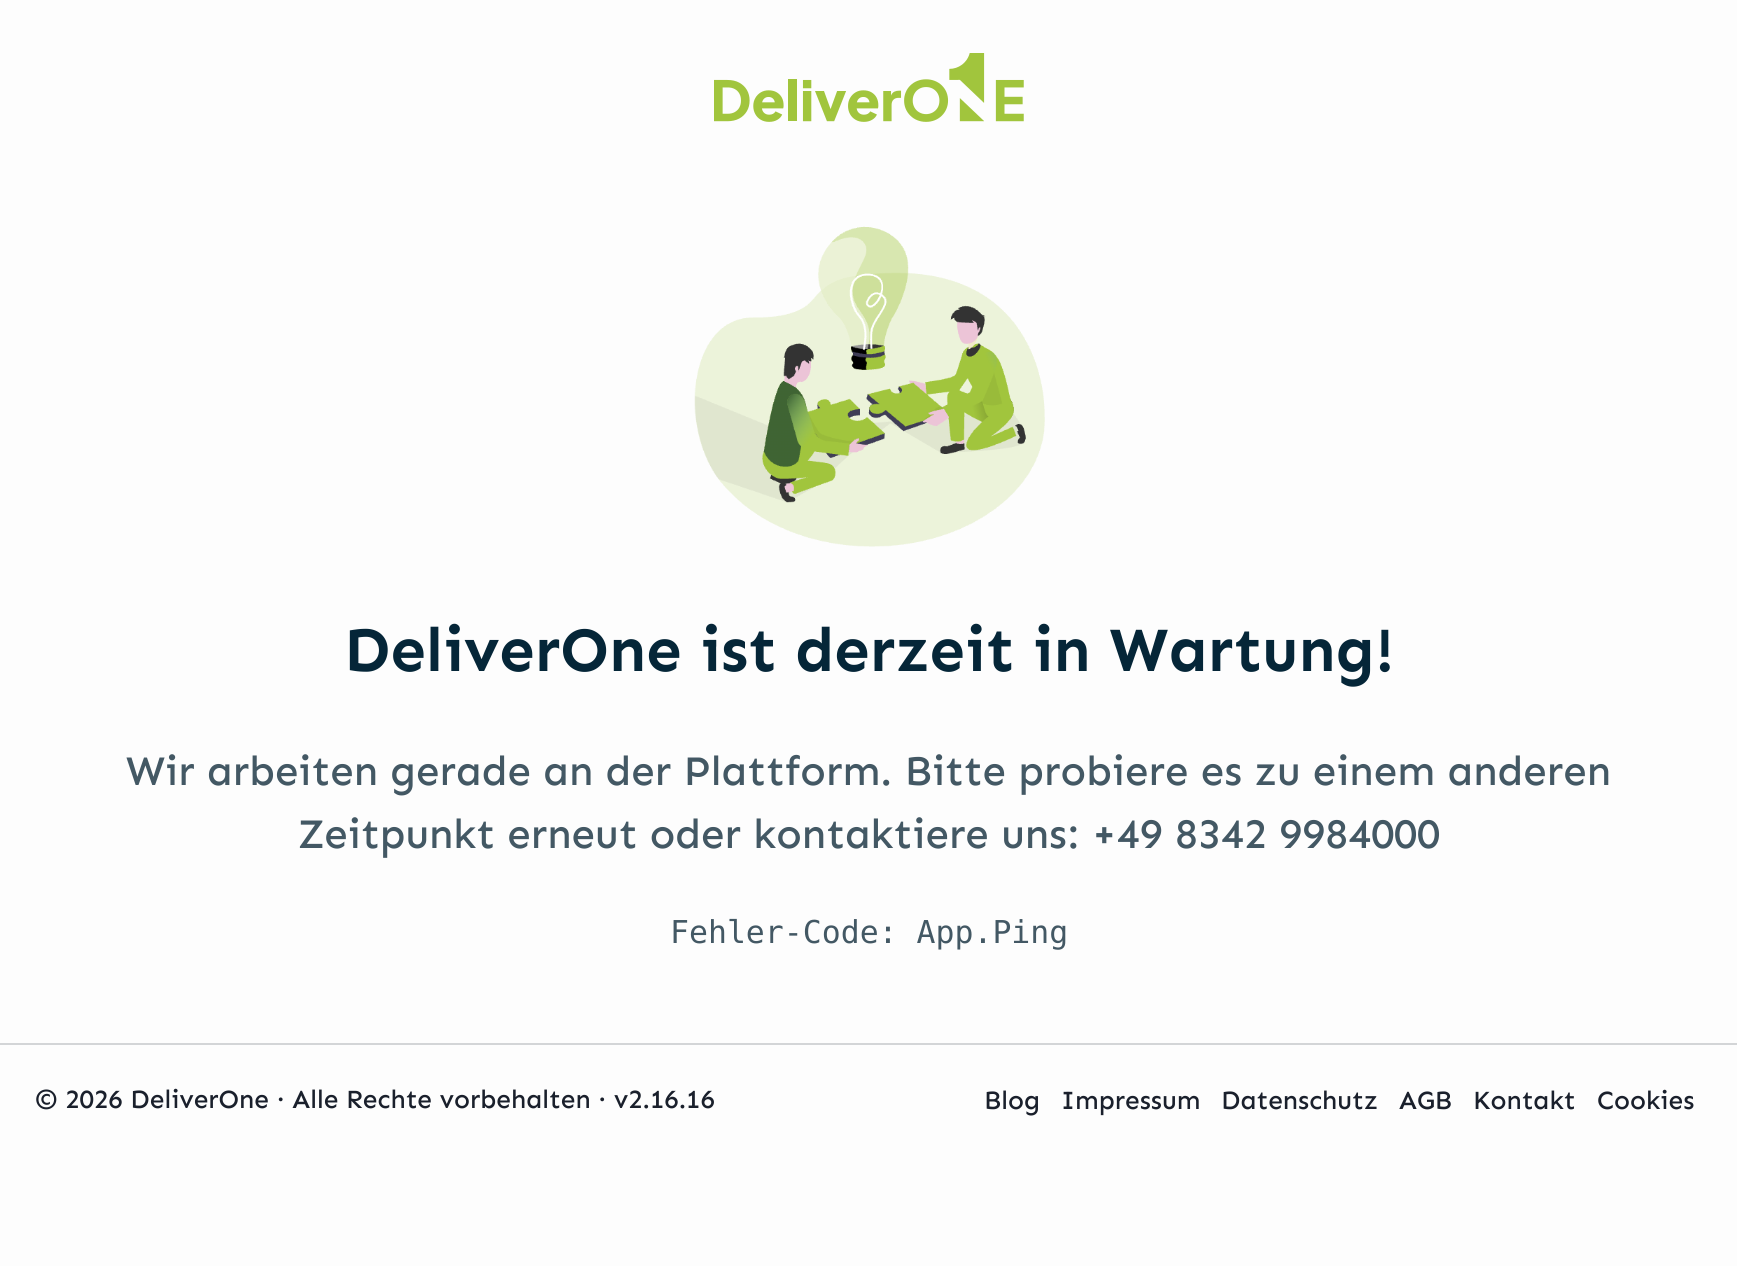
#include <cairo/cairo.h>
#include <math.h>
#include <stddef.h>


static void draw_image(cairo_t *cr, const char *path, double x, double y, double w, double h) {
  cairo_surface_t *image = cairo_image_surface_create_from_png(path);
  cairo_save(cr);
  cairo_set_source_surface(cr, image, x, y);
  cairo_rectangle(cr, x, y, w, h);
  cairo_fill(cr);
  cairo_restore(cr);
  cairo_surface_destroy(image);
}

static void draw(cairo_t *cr) {
  cairo_set_source_rgb(cr, 253 / 255.0, 253 / 255.0, 253 / 255.0);
  cairo_paint(cr);
  draw_image(cr, "images/1.png", 714, 53, 310, 69);
  draw_image(cr, "images/2.png", 694, 226, 351, 321);
  cairo_set_source_rgb(cr, 211 / 255.0, 213 / 255.0, 215 / 255.0);
  cairo_rectangle(cr, 0, 1043, 1737, 2);
  cairo_fill(cr);
  cairo_select_font_face(cr, "Sen", CAIRO_FONT_SLANT_NORMAL, CAIRO_FONT_WEIGHT_BOLD);
  cairo_set_font_size(cr, 63);
  cairo_set_source_rgb(cr, 5 / 255.0, 38 / 255.0, 56 / 255.0);
  cairo_move_to(cr, 344, 671);
  cairo_show_text(cr, "DeliverOne ist derzeit in Wartung!");
  cairo_select_font_face(cr, "Sen Medium", CAIRO_FONT_SLANT_NORMAL, CAIRO_FONT_WEIGHT_NORMAL);
  cairo_set_font_size(cr, 42);
  cairo_set_source_rgb(cr, 67 / 255.0, 88 / 255.0, 100 / 255.0);
  cairo_move_to(cr, 126, 785);
  cairo_show_text(cr, "Wir arbeiten gerade an der Plattform. Bitte probiere es zu einem anderen");
  cairo_move_to(cr, 298, 848);
  cairo_show_text(cr, "Zeitpunkt erneut oder kontaktiere uns: +49 8342 9984000");
  cairo_select_font_face(cr, "DejaVu Sans Mono", CAIRO_FONT_SLANT_NORMAL, CAIRO_FONT_WEIGHT_NORMAL);
  cairo_set_font_size(cr, 31.5);
  cairo_move_to(cr, 670, 943);
  cairo_show_text(cr, "Fehler-Code: App.Ping");
  cairo_select_font_face(cr, "Sen Medium", CAIRO_FONT_SLANT_NORMAL, CAIRO_FONT_WEIGHT_NORMAL);
  cairo_set_font_size(cr, 26.25);
  cairo_set_source_rgb(cr, 26 / 255.0, 32 / 255.0, 44 / 255.0);
  cairo_move_to(cr, 35, 1108);
  cairo_show_text(cr, "© 2026 DeliverOne · Alle Rechte vorbehalten · v2.16.16");
  cairo_move_to(cr, 984, 1109);
  cairo_show_text(cr, "Blog");
  cairo_move_to(cr, 1061, 1109);
  cairo_show_text(cr, "Impressum");
  cairo_move_to(cr, 1221, 1109);
  cairo_show_text(cr, "Datenschutz");
  cairo_move_to(cr, 1399, 1109);
  cairo_show_text(cr, "AGB");
  cairo_move_to(cr, 1473, 1109);
  cairo_show_text(cr, "Kontakt");
  cairo_move_to(cr, 1597, 1109);
  cairo_show_text(cr, "Cookies");
}

int main(void) {
  cairo_surface_t *surface = cairo_image_surface_create(CAIRO_FORMAT_RGB24, 1737, 1266);
  cairo_t *cr = cairo_create(surface);
  cairo_font_options_t *options = cairo_font_options_create();
  cairo_font_options_set_hint_metrics(options, CAIRO_HINT_METRICS_OFF);
  cairo_font_options_set_hint_style(options, CAIRO_HINT_STYLE_NONE);
  cairo_set_font_options(cr, options);
  cairo_set_miter_limit(cr, 4);
  draw(cr);
  cairo_surface_write_to_png(surface, "out.png");
  cairo_font_options_destroy(options);
  cairo_destroy(cr);
  cairo_surface_destroy(surface);
  return 0;
}
